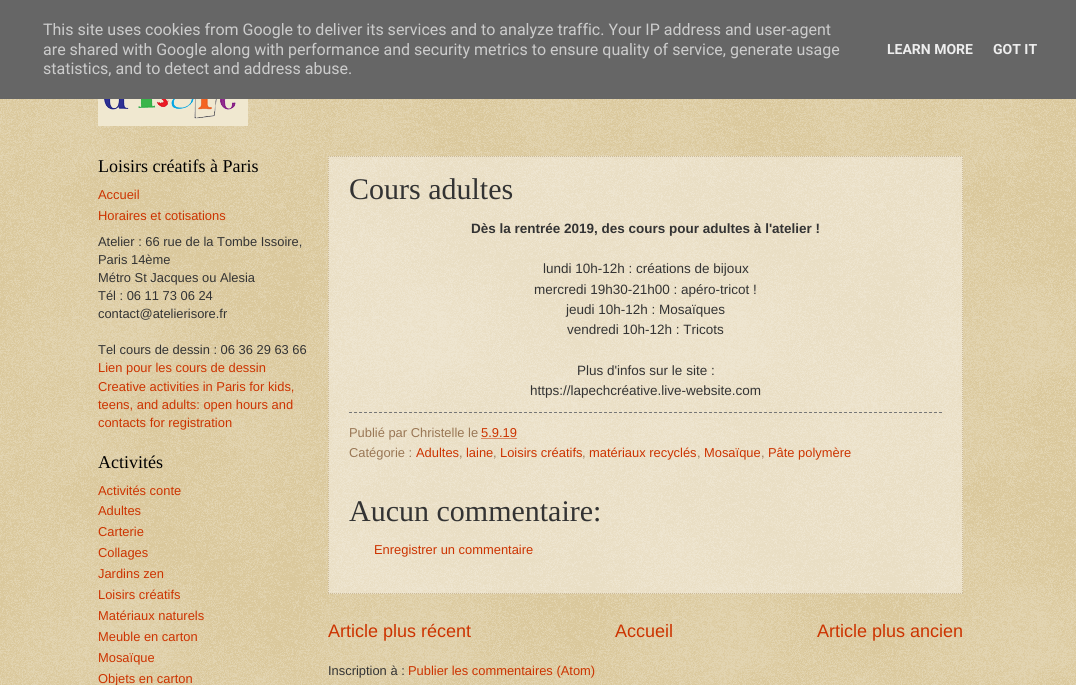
#include <cairo/cairo.h>
#include <math.h>
#include <stddef.h>


static void draw_image(cairo_t *cr, const char *path, double x, double y, double w, double h) {
  cairo_surface_t *image = cairo_image_surface_create_from_png(path);
  cairo_save(cr);
  cairo_set_source_surface(cr, image, x, y);
  cairo_rectangle(cr, x, y, w, h);
  cairo_fill(cr);
  cairo_restore(cr);
  cairo_surface_destroy(image);
}

static void draw(cairo_t *cr) {
  cairo_set_source_rgb(cr, 192 / 255.0, 161 / 255.0, 84 / 255.0);
  cairo_paint(cr);
  draw_image(cr, "images/1.png", 0, 99, 1076, 586);
  cairo_set_source_rgb(cr, 102 / 255.0, 102 / 255.0, 102 / 255.0);
  cairo_rectangle(cr, 0, 0, 1076, 99);
  cairo_fill(cr);
  cairo_set_source_rgb(cr, 240 / 255.0, 232 / 255.0, 208 / 255.0);
  cairo_rectangle(cr, 98, 99, 150, 27);
  cairo_fill(cr);
  draw_image(cr, "images/2.png", 104, 99, 132, 20);
  cairo_set_source_rgba(cr, 1, 1, 1, 0.4);
  cairo_rectangle(cr, 328, 156, 635, 438);
  cairo_fill(cr);
  cairo_new_path(cr);
  cairo_move_to(cr, 328, 156.5);
  cairo_line_to(cr, 963, 156.5);
  cairo_set_source_rgb(cr, 204 / 255.0, 187 / 255.0, 153 / 255.0);
  cairo_set_line_width(cr, 1);
  cairo_set_dash(cr, (double[]){1, 1}, 2, 0);
  cairo_stroke(cr);
  cairo_new_path(cr);
  cairo_move_to(cr, 962.5, 156);
  cairo_line_to(cr, 962.5, 594);
  cairo_stroke(cr);
  cairo_new_path(cr);
  cairo_move_to(cr, 328, 593.5);
  cairo_line_to(cr, 963, 593.5);
  cairo_stroke(cr);
  cairo_new_path(cr);
  cairo_move_to(cr, 328.5, 156);
  cairo_line_to(cr, 328.5, 594);
  cairo_stroke(cr);
  cairo_new_path(cr);
  cairo_move_to(cr, 349, 412.5);
  cairo_line_to(cr, 942, 412.5);
  cairo_set_source_rgb(cr, 119 / 255.0, 119 / 255.0, 119 / 255.0);
  cairo_set_dash(cr, (double[]){3, 2}, 2, 0);
  cairo_stroke(cr);
  cairo_new_path(cr);
  cairo_move_to(cr, 481.5, 438.5);
  cairo_line_to(cr, 517, 438.5);
  cairo_set_source_rgb(cr, 204 / 255.0, 51 / 255.0, 0);
  cairo_set_dash(cr, (double[]){1, 1}, 2, 0);
  cairo_stroke(cr);
  cairo_select_font_face(cr, "Roboto", CAIRO_FONT_SLANT_NORMAL, CAIRO_FONT_WEIGHT_NORMAL);
  cairo_set_font_size(cr, 16);
  cairo_set_source_rgb(cr, 204 / 255.0, 204 / 255.0, 204 / 255.0);
  cairo_move_to(cr, 43, 35);
  cairo_show_text(cr, "This site uses cookies from Google to deliver its services and to analyze traffic. Your IP address and user-agent");
  cairo_move_to(cr, 43, 55);
  cairo_show_text(cr, "are shared with Google along with performance and security metrics to ensure quality of service, generate usage");
  cairo_move_to(cr, 43, 74);
  cairo_show_text(cr, "statistics, and to detect and address abuse.");
  cairo_select_font_face(cr, "Roboto", CAIRO_FONT_SLANT_NORMAL, CAIRO_FONT_WEIGHT_BOLD);
  cairo_set_font_size(cr, 14);
  cairo_set_source_rgb(cr, 238 / 255.0, 238 / 255.0, 238 / 255.0);
  cairo_move_to(cr, 887, 54);
  cairo_show_text(cr, "LEARN MORE");
  cairo_move_to(cr, 993, 54);
  cairo_show_text(cr, "GOT IT");
  cairo_select_font_face(cr, "Liberation Serif", CAIRO_FONT_SLANT_NORMAL, CAIRO_FONT_WEIGHT_NORMAL);
  cairo_set_font_size(cr, 18);
  cairo_set_source_rgb(cr, 0, 0, 0);
  cairo_move_to(cr, 98, 172);
  cairo_show_text(cr, "Loisirs créatifs à Paris");
  cairo_select_font_face(cr, "Liberation Sans", CAIRO_FONT_SLANT_NORMAL, CAIRO_FONT_WEIGHT_NORMAL);
  cairo_set_font_size(cr, 12.9);
  cairo_set_source_rgb(cr, 204 / 255.0, 51 / 255.0, 0);
  cairo_move_to(cr, 98, 199);
  cairo_show_text(cr, "Accueil");
  cairo_move_to(cr, 98, 220);
  cairo_show_text(cr, "Horaires et cotisations");
  cairo_set_source_rgb(cr, 51 / 255.0, 51 / 255.0, 51 / 255.0);
  cairo_move_to(cr, 98, 246);
  cairo_show_text(cr, "Atelier : 66 rue de la Tombe Issoire,");
  cairo_move_to(cr, 98, 264);
  cairo_show_text(cr, "Paris 14ème");
  cairo_move_to(cr, 98, 282);
  cairo_show_text(cr, "Métro St Jacques ou Alesia");
  cairo_move_to(cr, 98, 300);
  cairo_show_text(cr, "Tél : 06 11 73 06 24");
  cairo_move_to(cr, 98, 318);
  cairo_show_text(cr, "contact@atelierisore.fr");
  cairo_move_to(cr, 98, 354);
  cairo_show_text(cr, "Tel cours de dessin : 06 36 29 63 66");
  cairo_set_source_rgb(cr, 204 / 255.0, 51 / 255.0, 0);
  cairo_move_to(cr, 98, 372);
  cairo_show_text(cr, "Lien pour les cours de dessin");
  cairo_move_to(cr, 98, 391);
  cairo_show_text(cr, "Creative activities in Paris for kids,");
  cairo_move_to(cr, 98, 409);
  cairo_show_text(cr, "teens, and adults: open hours and");
  cairo_move_to(cr, 98, 427);
  cairo_show_text(cr, "contacts for registration");
  cairo_select_font_face(cr, "Liberation Serif", CAIRO_FONT_SLANT_NORMAL, CAIRO_FONT_WEIGHT_NORMAL);
  cairo_set_font_size(cr, 18);
  cairo_set_source_rgb(cr, 0, 0, 0);
  cairo_move_to(cr, 98, 468);
  cairo_show_text(cr, "Activités");
  cairo_select_font_face(cr, "Liberation Sans", CAIRO_FONT_SLANT_NORMAL, CAIRO_FONT_WEIGHT_NORMAL);
  cairo_set_font_size(cr, 12.9);
  cairo_set_source_rgb(cr, 204 / 255.0, 51 / 255.0, 0);
  cairo_move_to(cr, 98, 495);
  cairo_show_text(cr, "Activités conte");
  cairo_move_to(cr, 98, 515);
  cairo_show_text(cr, "Adultes");
  cairo_move_to(cr, 98, 536);
  cairo_show_text(cr, "Carterie");
  cairo_move_to(cr, 98, 557);
  cairo_show_text(cr, "Collages");
  cairo_move_to(cr, 98, 578);
  cairo_show_text(cr, "Jardins zen");
  cairo_move_to(cr, 98, 599);
  cairo_show_text(cr, "Loisirs créatifs");
  cairo_move_to(cr, 98, 620);
  cairo_show_text(cr, "Matériaux naturels");
  cairo_move_to(cr, 98, 641);
  cairo_show_text(cr, "Meuble en carton");
  cairo_move_to(cr, 98, 662);
  cairo_show_text(cr, "Mosaïque");
  cairo_move_to(cr, 98, 683);
  cairo_show_text(cr, "Objets en carton");
  cairo_select_font_face(cr, "Liberation Serif", CAIRO_FONT_SLANT_NORMAL, CAIRO_FONT_WEIGHT_NORMAL);
  cairo_set_font_size(cr, 30);
  cairo_set_source_rgb(cr, 51 / 255.0, 51 / 255.0, 51 / 255.0);
  cairo_move_to(cr, 349, 199);
  cairo_show_text(cr, "Cours adultes");
  cairo_select_font_face(cr, "Liberation Sans", CAIRO_FONT_SLANT_NORMAL, CAIRO_FONT_WEIGHT_BOLD);
  cairo_set_font_size(cr, 13.5);
  cairo_move_to(cr, 471, 233);
  cairo_show_text(cr, "Dès la rentrée 2019, des cours pour adultes à l'atelier !");
  cairo_select_font_face(cr, "Liberation Sans", CAIRO_FONT_SLANT_NORMAL, CAIRO_FONT_WEIGHT_NORMAL);
  cairo_move_to(cr, 543, 273);
  cairo_show_text(cr, "lundi 10h-12h : créations de bijoux");
  cairo_move_to(cr, 534, 294);
  cairo_show_text(cr, "mercredi 19h30-21h00 : apéro-tricot !");
  cairo_move_to(cr, 566, 314);
  cairo_show_text(cr, "jeudi 10h-12h : Mosaïques");
  cairo_move_to(cr, 567, 334);
  cairo_show_text(cr, "vendredi 10h-12h : Tricots");
  cairo_move_to(cr, 577, 375);
  cairo_show_text(cr, "Plus d'infos sur le site :");
  cairo_move_to(cr, 530, 395);
  cairo_show_text(cr, "https://lapechcréative.live-website.com");
  cairo_set_font_size(cr, 12.9);
  cairo_set_source_rgb(cr, 153 / 255.0, 119 / 255.0, 85 / 255.0);
  cairo_move_to(cr, 349, 437);
  cairo_show_text(cr, "Publié par Christelle le");
  cairo_set_source_rgb(cr, 204 / 255.0, 51 / 255.0, 0);
  cairo_move_to(cr, 481, 437);
  cairo_show_text(cr, "5.9.19");
  cairo_set_source_rgb(cr, 153 / 255.0, 119 / 255.0, 85 / 255.0);
  cairo_move_to(cr, 349, 457);
  cairo_show_text(cr, "Catégorie :");
  cairo_set_source_rgb(cr, 204 / 255.0, 51 / 255.0, 0);
  cairo_move_to(cr, 416, 457);
  cairo_show_text(cr, "Adultes");
  cairo_set_source_rgb(cr, 153 / 255.0, 119 / 255.0, 85 / 255.0);
  cairo_move_to(cr, 459, 457);
  cairo_show_text(cr, ",");
  cairo_set_source_rgb(cr, 204 / 255.0, 51 / 255.0, 0);
  cairo_move_to(cr, 466, 457);
  cairo_show_text(cr, "laine");
  cairo_set_source_rgb(cr, 153 / 255.0, 119 / 255.0, 85 / 255.0);
  cairo_move_to(cr, 493, 457);
  cairo_show_text(cr, ",");
  cairo_set_source_rgb(cr, 204 / 255.0, 51 / 255.0, 0);
  cairo_move_to(cr, 500, 457);
  cairo_show_text(cr, "Loisirs créatifs");
  cairo_set_source_rgb(cr, 153 / 255.0, 119 / 255.0, 85 / 255.0);
  cairo_move_to(cr, 582, 457);
  cairo_show_text(cr, ",");
  cairo_set_source_rgb(cr, 204 / 255.0, 51 / 255.0, 0);
  cairo_move_to(cr, 589, 457);
  cairo_show_text(cr, "matériaux recyclés");
  cairo_set_source_rgb(cr, 153 / 255.0, 119 / 255.0, 85 / 255.0);
  cairo_move_to(cr, 697, 457);
  cairo_show_text(cr, ",");
  cairo_set_source_rgb(cr, 204 / 255.0, 51 / 255.0, 0);
  cairo_move_to(cr, 704, 457);
  cairo_show_text(cr, "Mosaïque");
  cairo_set_source_rgb(cr, 153 / 255.0, 119 / 255.0, 85 / 255.0);
  cairo_move_to(cr, 761, 457);
  cairo_show_text(cr, ",");
  cairo_set_source_rgb(cr, 204 / 255.0, 51 / 255.0, 0);
  cairo_move_to(cr, 768, 457);
  cairo_show_text(cr, "Pâte polymère");
  cairo_select_font_face(cr, "Liberation Serif", CAIRO_FONT_SLANT_NORMAL, CAIRO_FONT_WEIGHT_NORMAL);
  cairo_set_font_size(cr, 30);
  cairo_set_source_rgb(cr, 51 / 255.0, 51 / 255.0, 51 / 255.0);
  cairo_move_to(cr, 349, 521);
  cairo_show_text(cr, "Aucun commentaire:");
  cairo_select_font_face(cr, "Liberation Sans", CAIRO_FONT_SLANT_NORMAL, CAIRO_FONT_WEIGHT_NORMAL);
  cairo_set_font_size(cr, 12.9);
  cairo_set_source_rgb(cr, 204 / 255.0, 51 / 255.0, 0);
  cairo_move_to(cr, 374, 554);
  cairo_show_text(cr, "Enregistrer un commentaire");
  cairo_set_font_size(cr, 18);
  cairo_move_to(cr, 328, 637);
  cairo_show_text(cr, "Article plus récent");
  cairo_move_to(cr, 615, 637);
  cairo_show_text(cr, "Accueil");
  cairo_move_to(cr, 817, 637);
  cairo_show_text(cr, "Article plus ancien");
  cairo_set_font_size(cr, 12.9);
  cairo_set_source_rgb(cr, 51 / 255.0, 51 / 255.0, 51 / 255.0);
  cairo_move_to(cr, 328, 675);
  cairo_show_text(cr, "Inscription à :");
  cairo_set_source_rgb(cr, 204 / 255.0, 51 / 255.0, 0);
  cairo_move_to(cr, 408, 675);
  cairo_show_text(cr, "Publier les commentaires (Atom)");
}

int main(void) {
  cairo_surface_t *surface = cairo_image_surface_create(CAIRO_FORMAT_RGB24, 1076, 685);
  cairo_t *cr = cairo_create(surface);
  cairo_font_options_t *options = cairo_font_options_create();
  cairo_font_options_set_hint_metrics(options, CAIRO_HINT_METRICS_OFF);
  cairo_font_options_set_hint_style(options, CAIRO_HINT_STYLE_NONE);
  cairo_set_font_options(cr, options);
  cairo_set_miter_limit(cr, 4);
  draw(cr);
  cairo_surface_write_to_png(surface, "out.png");
  cairo_font_options_destroy(options);
  cairo_destroy(cr);
  cairo_surface_destroy(surface);
  return 0;
}
